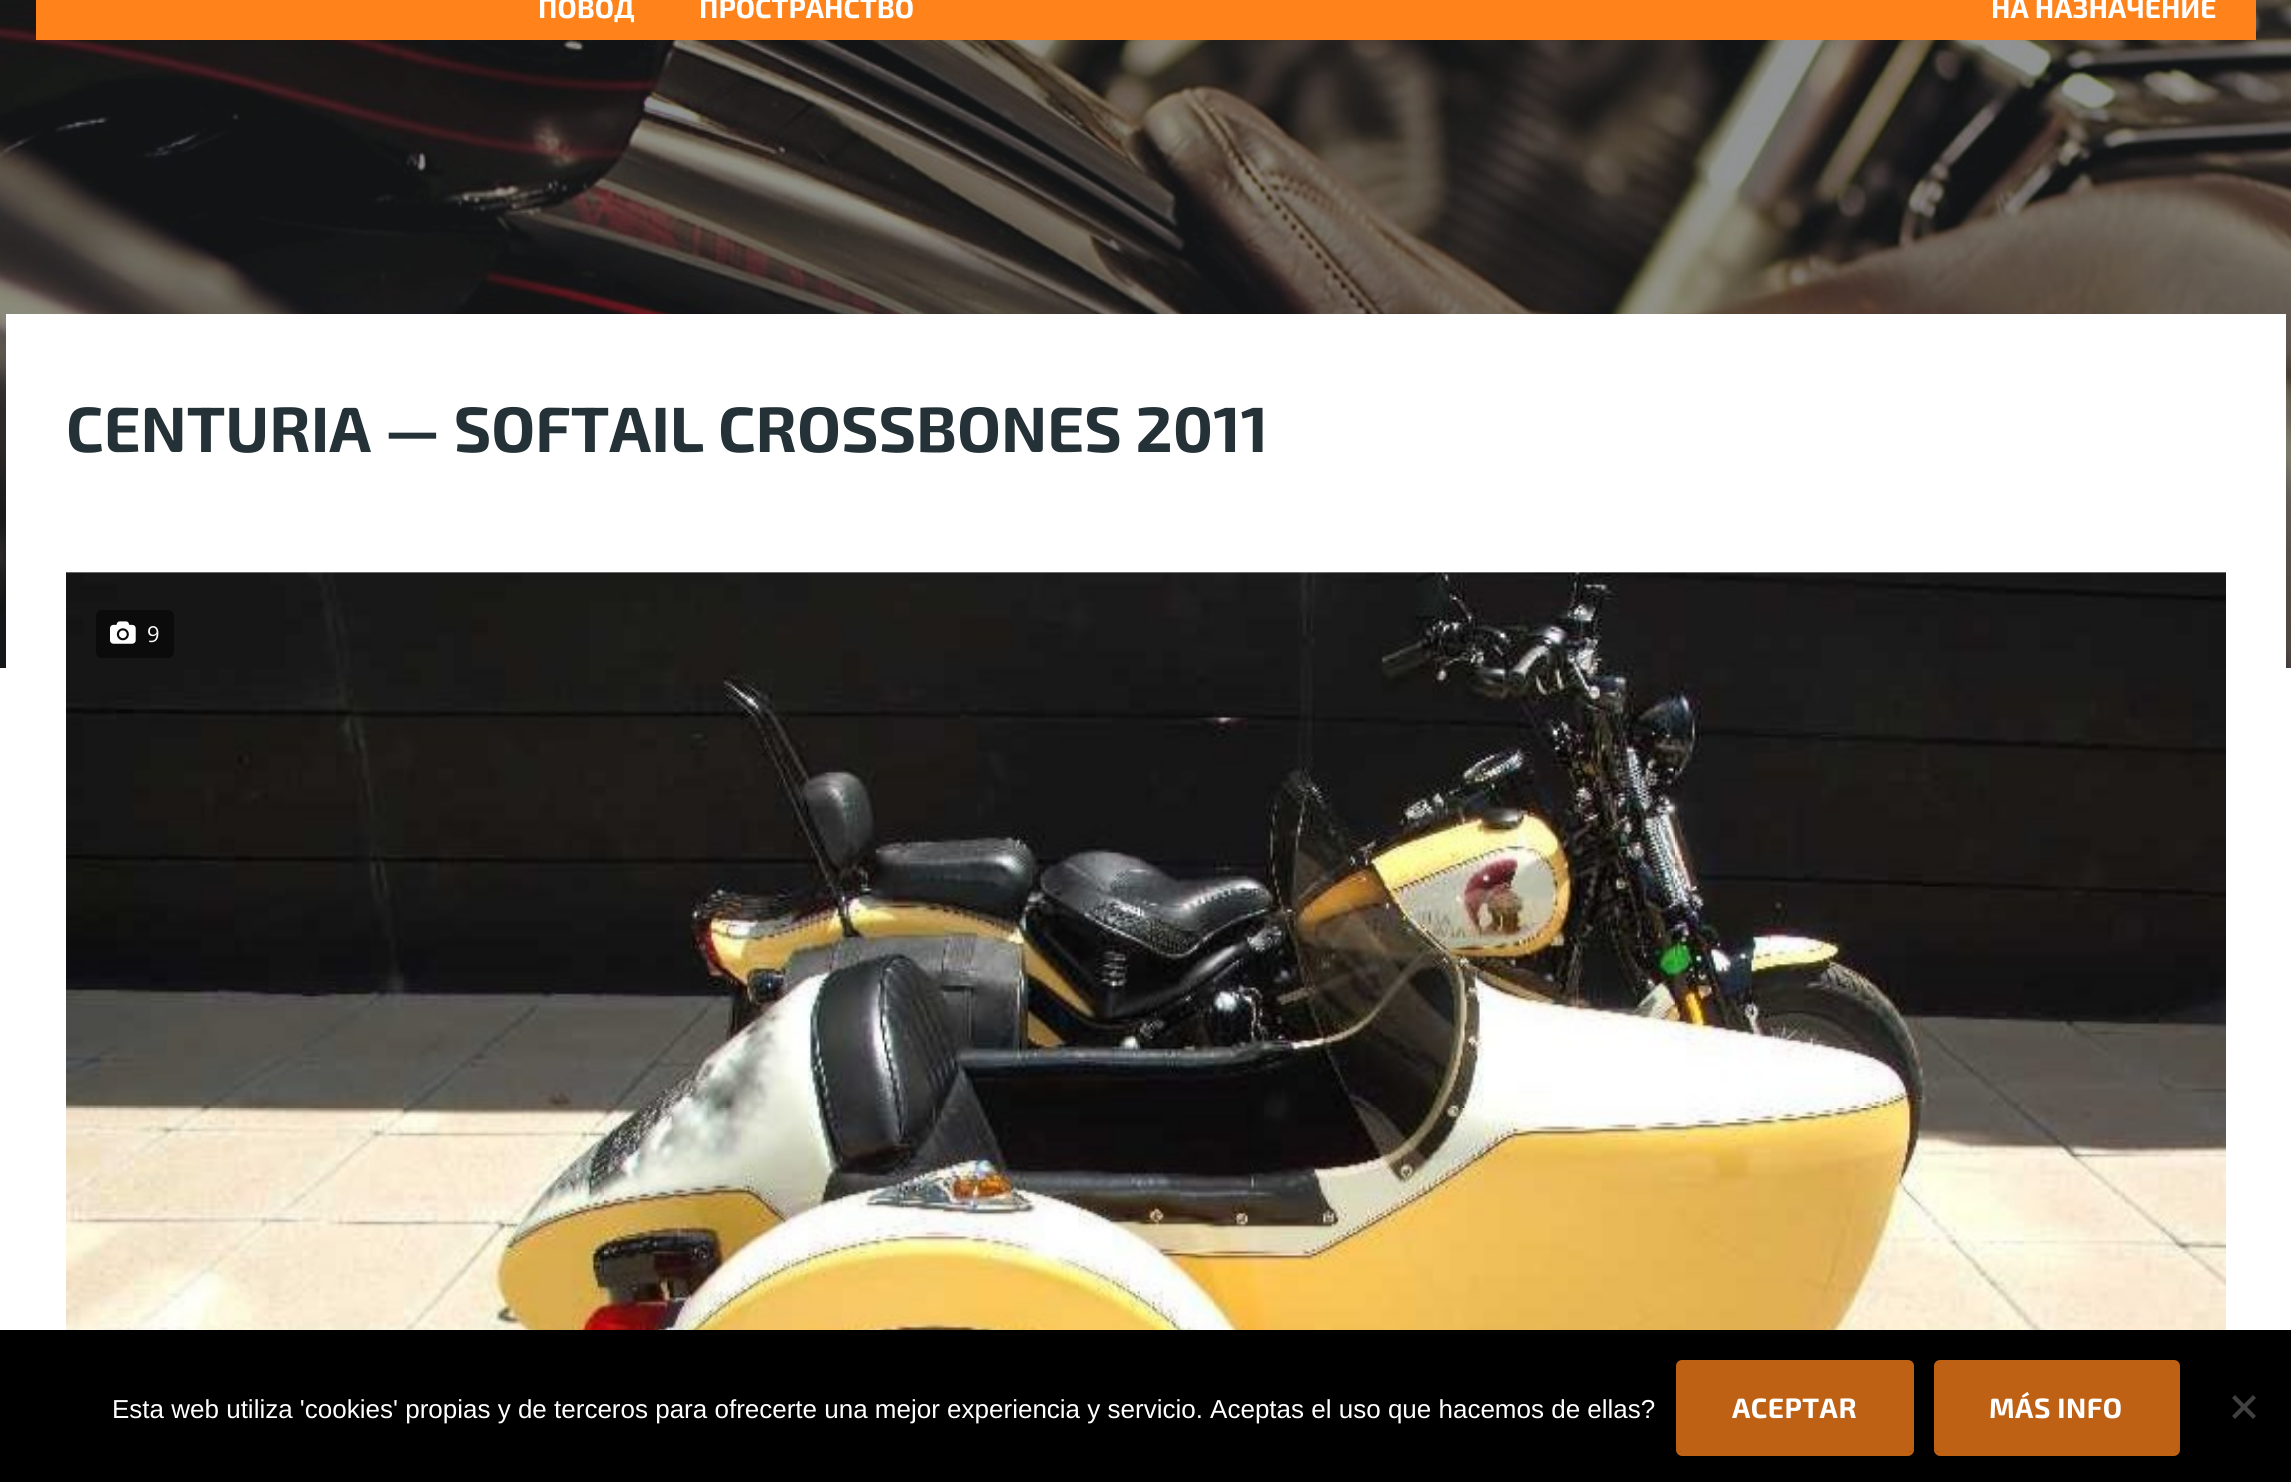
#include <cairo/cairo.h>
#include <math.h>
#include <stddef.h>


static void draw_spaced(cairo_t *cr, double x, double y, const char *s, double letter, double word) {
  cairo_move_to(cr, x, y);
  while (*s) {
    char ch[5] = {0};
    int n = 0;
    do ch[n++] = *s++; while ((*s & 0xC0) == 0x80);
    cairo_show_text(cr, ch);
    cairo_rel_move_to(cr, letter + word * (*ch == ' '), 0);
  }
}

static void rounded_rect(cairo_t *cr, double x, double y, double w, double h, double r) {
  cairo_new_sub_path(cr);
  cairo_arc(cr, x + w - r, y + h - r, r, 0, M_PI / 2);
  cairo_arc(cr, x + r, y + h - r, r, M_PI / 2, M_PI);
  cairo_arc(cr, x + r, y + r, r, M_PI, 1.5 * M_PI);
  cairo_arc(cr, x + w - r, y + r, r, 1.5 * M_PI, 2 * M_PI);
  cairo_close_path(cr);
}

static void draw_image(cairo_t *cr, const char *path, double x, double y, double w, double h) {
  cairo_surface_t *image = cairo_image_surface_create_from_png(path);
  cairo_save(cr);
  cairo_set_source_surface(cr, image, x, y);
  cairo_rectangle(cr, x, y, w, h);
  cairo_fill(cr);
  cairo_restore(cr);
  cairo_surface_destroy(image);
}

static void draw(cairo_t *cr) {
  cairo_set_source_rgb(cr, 1, 1, 1);
  cairo_paint(cr);
  draw_image(cr, "images/1.png", 0, 0, 2291, 668);
  cairo_set_source_rgb(cr, 1, 130 / 255.0, 27 / 255.0);
  cairo_rectangle(cr, 36, 0, 2220, 40);
  cairo_fill(cr);
  cairo_set_source_rgb(cr, 1, 1, 1);
  cairo_rectangle(cr, 6, 314, 2280, 354);
  cairo_fill(cr);
  draw_image(cr, "images/2.png", 66, 572, 2160, 758);
  cairo_set_source_rgb(cr, 11 / 255.0, 11 / 255.0, 11 / 255.0);
  rounded_rect(cr, 96, 610, 78, 48, 6);
  cairo_fill(cr);
  draw_image(cr, "images/3.png", 110, 621, 26, 23);
  cairo_set_source_rgb(cr, 0, 0, 0);
  cairo_rectangle(cr, 0, 1330, 2291, 152);
  cairo_fill(cr);
  cairo_set_source_rgb(cr, 191 / 255.0, 98 / 255.0, 20 / 255.0);
  cairo_new_path(cr);
  cairo_move_to(cr, 1676, 1446);
  cairo_line_to(cr, 1676, 1450);
  cairo_curve_to(cr, 1676, 1453, 1679, 1456, 1682, 1456);
  cairo_line_to(cr, 1908, 1456);
  cairo_curve_to(cr, 1911, 1456, 1914, 1453, 1914, 1450);
  cairo_line_to(cr, 1914, 1446);
  cairo_curve_to(cr, 1914, 1449, 1911, 1452, 1908, 1452);
  cairo_line_to(cr, 1682, 1452);
  cairo_curve_to(cr, 1679, 1452, 1676, 1449, 1676, 1446);
  cairo_close_path(cr);
  cairo_fill(cr);
  cairo_set_source_rgba(cr, 1, 130 / 255.0, 27 / 255.0, 0.75);
  rounded_rect(cr, 1676, 1360, 238, 92, 6);
  cairo_fill(cr);
  cairo_set_source_rgb(cr, 191 / 255.0, 98 / 255.0, 20 / 255.0);
  cairo_new_path(cr);
  cairo_move_to(cr, 1934, 1446);
  cairo_line_to(cr, 1934, 1450);
  cairo_curve_to(cr, 1934, 1453, 1937, 1456, 1940, 1456);
  cairo_line_to(cr, 2174, 1456);
  cairo_curve_to(cr, 2177, 1456, 2180, 1453, 2180, 1450);
  cairo_line_to(cr, 2180, 1446);
  cairo_curve_to(cr, 2180, 1449, 2177, 1452, 2174, 1452);
  cairo_line_to(cr, 1940, 1452);
  cairo_curve_to(cr, 1937, 1452, 1934, 1449, 1934, 1446);
  cairo_close_path(cr);
  cairo_fill(cr);
  cairo_set_source_rgba(cr, 1, 130 / 255.0, 27 / 255.0, 0.75);
  rounded_rect(cr, 1934, 1360, 246, 92, 6);
  cairo_fill(cr);
  cairo_set_source_rgb(cr, 64 / 255.0, 64 / 255.0, 64 / 255.0);
  cairo_new_path(cr);
  cairo_move_to(cr, 2253, 1395);
  cairo_line_to(cr, 2256, 1398);
  cairo_line_to(cr, 2235, 1419);
  cairo_line_to(cr, 2232, 1416);
  cairo_close_path(cr);
  cairo_fill(cr);
  cairo_new_path(cr);
  cairo_move_to(cr, 2232, 1398);
  cairo_line_to(cr, 2235, 1395);
  cairo_line_to(cr, 2256, 1416);
  cairo_line_to(cr, 2253, 1419);
  cairo_close_path(cr);
  cairo_fill(cr);
  cairo_select_font_face(cr, "Exo 2", CAIRO_FONT_SLANT_NORMAL, CAIRO_FONT_WEIGHT_BOLD);
  cairo_set_font_size(cr, 28);
  cairo_set_source_rgb(cr, 1, 1, 1);
  cairo_move_to(cr, 538, 18);
  cairo_show_text(cr, "ПОВОД");
  cairo_move_to(cr, 699, 18);
  cairo_show_text(cr, "ПРОСТРАНСТВО");
  cairo_move_to(cr, 1991, 18);
  cairo_show_text(cr, "НА НАЗНАЧЕНИЕ");
  cairo_set_font_size(cr, 64);
  cairo_set_source_rgb(cr, 36 / 255.0, 49 / 255.0, 55 / 255.0);
  cairo_move_to(cr, 66, 452);
  cairo_show_text(cr, "CENTURIA — SOFTAIL CROSSBONES 2011");
  cairo_select_font_face(cr, "Open Sans", CAIRO_FONT_SLANT_NORMAL, CAIRO_FONT_WEIGHT_NORMAL);
  cairo_set_font_size(cr, 22);
  cairo_set_source_rgb(cr, 1, 1, 1);
  cairo_move_to(cr, 147, 642);
  cairo_show_text(cr, "9");
  cairo_select_font_face(cr, "Liberation Sans", CAIRO_FONT_SLANT_NORMAL, CAIRO_FONT_WEIGHT_NORMAL);
  cairo_set_font_size(cr, 26);
  cairo_move_to(cr, 112, 1418);
  cairo_show_text(cr, "Esta web utiliza 'cookies' propias y de terceros para ofrecerte una mejor experiencia y servicio. Aceptas el uso que hacemos de ellas?");
  cairo_select_font_face(cr, "Exo 2", CAIRO_FONT_SLANT_NORMAL, CAIRO_FONT_WEIGHT_BOLD);
  cairo_set_font_size(cr, 28);
  draw_spaced(cr, 1732, 1418, "ACEPTAR", 0.5, 0);
  draw_spaced(cr, 1989, 1418, "MÁS INFO", 0.5, 0);
}

int main(void) {
  cairo_surface_t *surface = cairo_image_surface_create(CAIRO_FORMAT_RGB24, 2291, 1482);
  cairo_t *cr = cairo_create(surface);
  cairo_font_options_t *options = cairo_font_options_create();
  cairo_font_options_set_hint_metrics(options, CAIRO_HINT_METRICS_OFF);
  cairo_font_options_set_hint_style(options, CAIRO_HINT_STYLE_NONE);
  cairo_set_font_options(cr, options);
  cairo_set_miter_limit(cr, 4);
  draw(cr);
  cairo_surface_write_to_png(surface, "out.png");
  cairo_font_options_destroy(options);
  cairo_destroy(cr);
  cairo_surface_destroy(surface);
  return 0;
}
